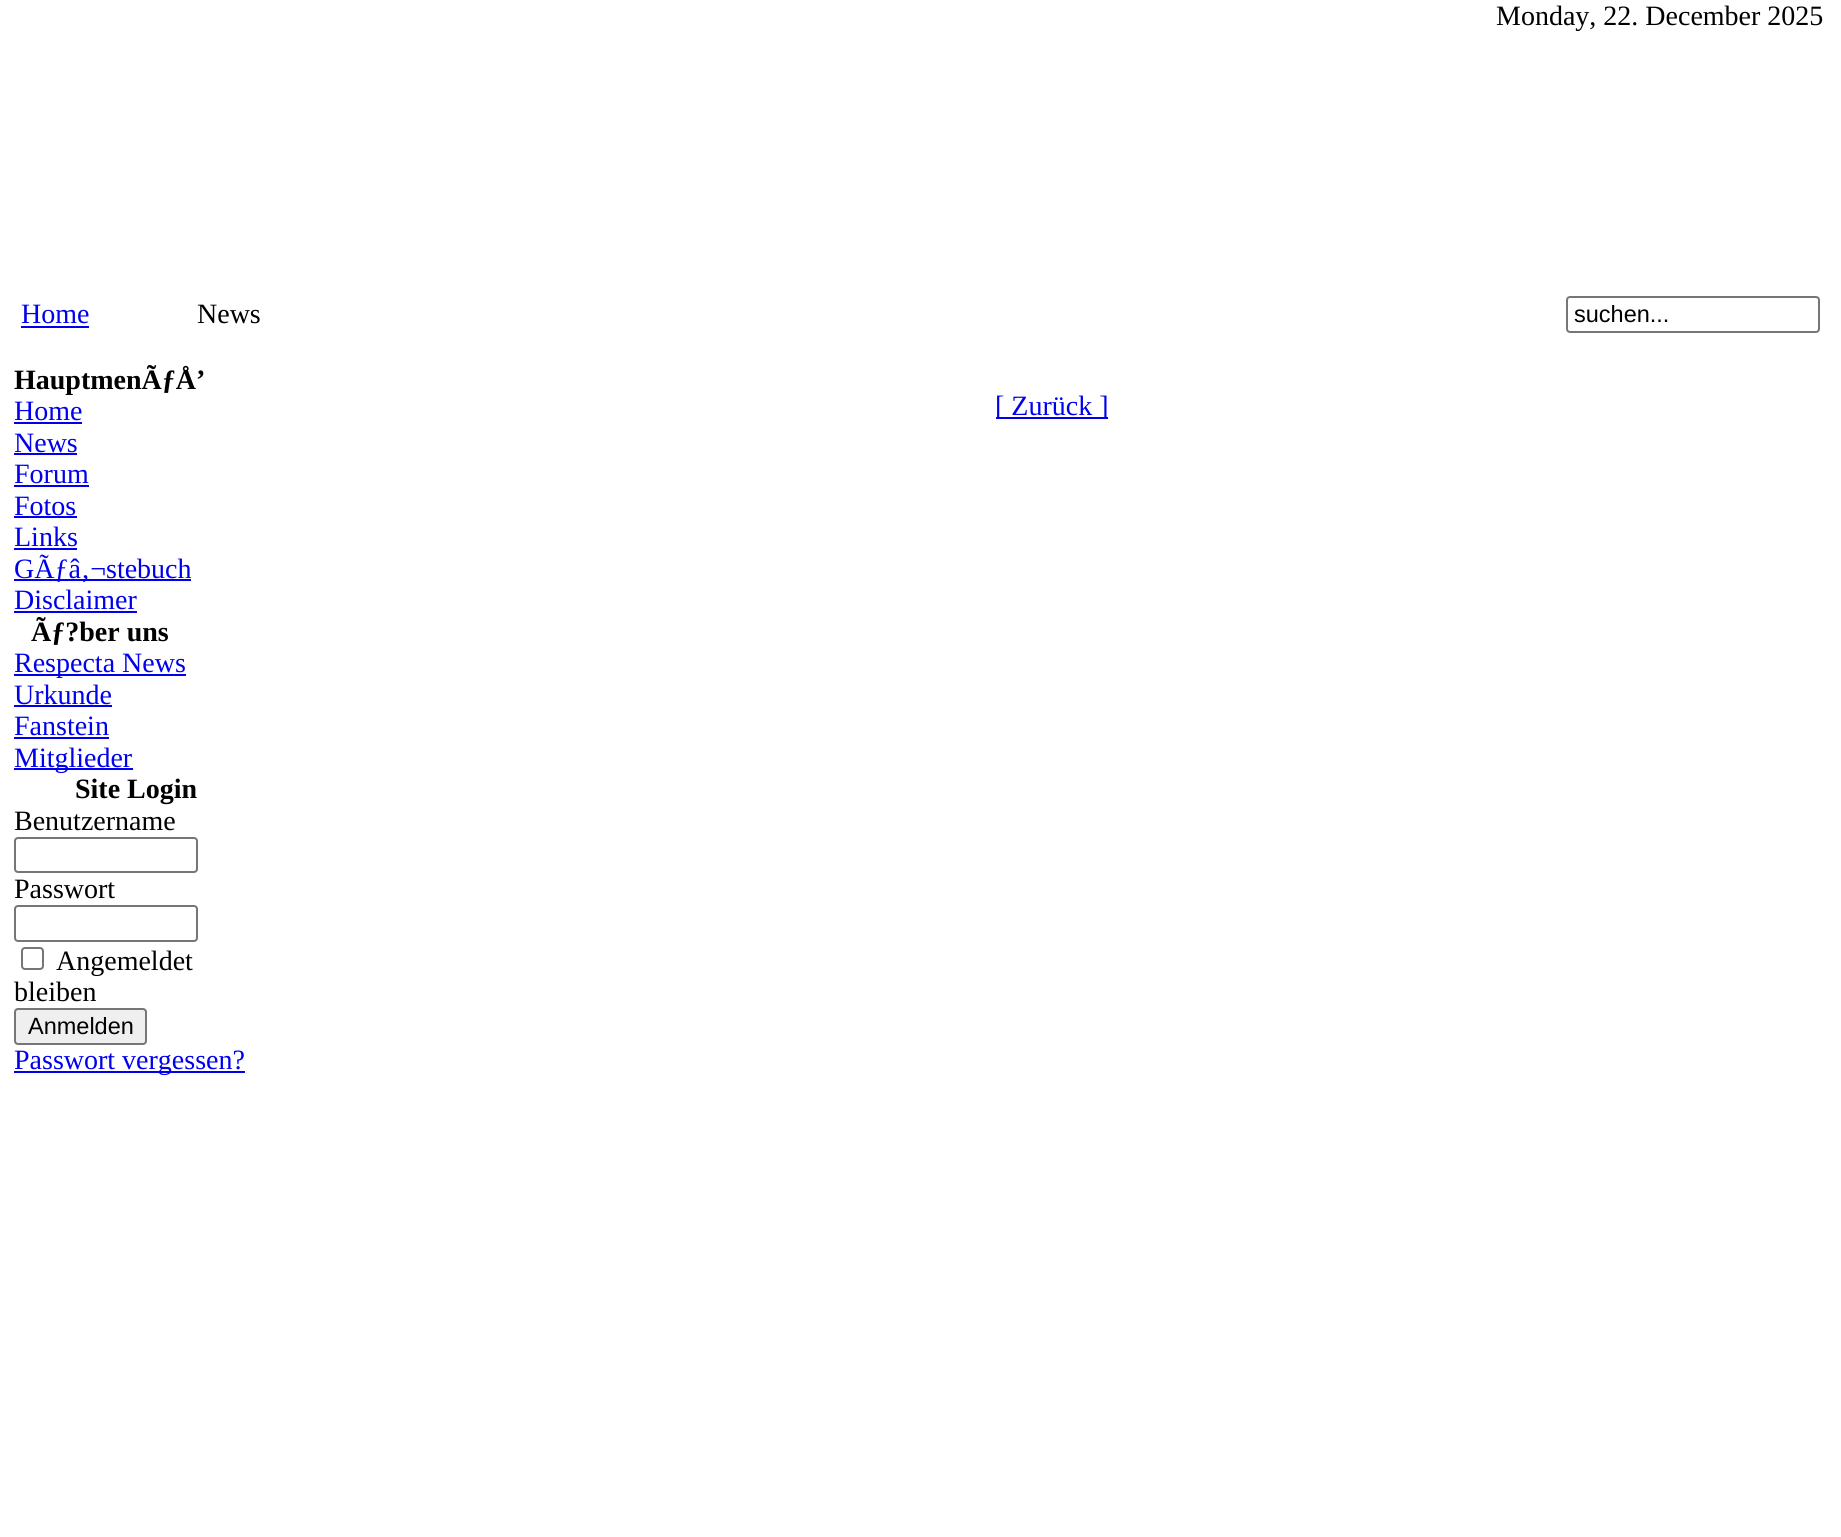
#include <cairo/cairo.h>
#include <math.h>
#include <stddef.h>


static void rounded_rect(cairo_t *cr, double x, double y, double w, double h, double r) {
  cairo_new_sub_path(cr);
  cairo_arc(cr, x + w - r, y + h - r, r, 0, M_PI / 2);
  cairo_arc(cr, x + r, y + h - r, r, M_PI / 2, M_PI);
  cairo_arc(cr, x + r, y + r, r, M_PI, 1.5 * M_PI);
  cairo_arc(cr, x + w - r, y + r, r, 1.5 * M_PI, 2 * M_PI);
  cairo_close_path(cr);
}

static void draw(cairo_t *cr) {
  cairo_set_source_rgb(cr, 1, 1, 1);
  cairo_paint(cr);
  cairo_set_source_rgb(cr, 0, 0, 238 / 255.0);
  cairo_rectangle(cr, 21, 326, 68, 2);
  cairo_fill(cr);
  rounded_rect(cr, 1567, 297, 252, 35, 3);
  cairo_set_source_rgb(cr, 118 / 255.0, 118 / 255.0, 118 / 255.0);
  cairo_stroke(cr);
  cairo_set_source_rgb(cr, 0, 0, 238 / 255.0);
  cairo_rectangle(cr, 14, 422, 68, 2);
  cairo_fill(cr);
  cairo_rectangle(cr, 14, 453, 63, 2);
  cairo_fill(cr);
  cairo_rectangle(cr, 14, 485, 75, 2);
  cairo_fill(cr);
  cairo_rectangle(cr, 14, 516, 63, 2);
  cairo_fill(cr);
  cairo_rectangle(cr, 14, 548, 63, 2);
  cairo_fill(cr);
  cairo_rectangle(cr, 14, 579, 177, 2);
  cairo_fill(cr);
  cairo_rectangle(cr, 14, 611, 123, 2);
  cairo_fill(cr);
  cairo_rectangle(cr, 14, 674, 172, 2);
  cairo_fill(cr);
  cairo_rectangle(cr, 14, 705, 98, 2);
  cairo_fill(cr);
  cairo_rectangle(cr, 14, 737, 95, 2);
  cairo_fill(cr);
  cairo_rectangle(cr, 14, 768, 119, 2);
  cairo_fill(cr);
  rounded_rect(cr, 15, 838, 182, 34, 3);
  cairo_set_source_rgb(cr, 118 / 255.0, 118 / 255.0, 118 / 255.0);
  cairo_stroke(cr);
  rounded_rect(cr, 15, 906, 182, 35, 3);
  cairo_stroke(cr);
  rounded_rect(cr, 22, 948, 21, 21, 3);
  cairo_stroke(cr);
  cairo_set_source_rgb(cr, 239 / 255.0, 239 / 255.0, 239 / 255.0);
  rounded_rect(cr, 15, 1009, 131, 35, 3);
  cairo_fill_preserve(cr);
  cairo_set_source_rgb(cr, 118 / 255.0, 118 / 255.0, 118 / 255.0);
  cairo_stroke(cr);
  cairo_set_source_rgb(cr, 0, 0, 238 / 255.0);
  cairo_rectangle(cr, 14, 1071, 231, 2);
  cairo_fill(cr);
  cairo_rectangle(cr, 996, 417, 112, 2);
  cairo_fill(cr);
  cairo_select_font_face(cr, "Liberation Serif", CAIRO_FONT_SLANT_NORMAL, CAIRO_FONT_WEIGHT_NORMAL);
  cairo_set_font_size(cr, 28);
  cairo_set_source_rgb(cr, 0, 0, 0);
  cairo_move_to(cr, 1496, 25);
  cairo_show_text(cr, "Monday, 22. December 2025");
  cairo_set_source_rgb(cr, 0, 0, 238 / 255.0);
  cairo_move_to(cr, 21, 323);
  cairo_show_text(cr, "Home");
  cairo_set_source_rgb(cr, 0, 0, 0);
  cairo_move_to(cr, 197, 323);
  cairo_show_text(cr, "News");
  cairo_select_font_face(cr, "Liberation Sans", CAIRO_FONT_SLANT_NORMAL, CAIRO_FONT_WEIGHT_NORMAL);
  cairo_set_font_size(cr, 23.5);
  cairo_move_to(cr, 1574, 322);
  cairo_show_text(cr, "suchen...");
  cairo_select_font_face(cr, "Liberation Serif", CAIRO_FONT_SLANT_NORMAL, CAIRO_FONT_WEIGHT_BOLD);
  cairo_set_font_size(cr, 28);
  cairo_move_to(cr, 14, 389);
  cairo_show_text(cr, "HauptmenÃƒÅ’");
  cairo_select_font_face(cr, "Liberation Serif", CAIRO_FONT_SLANT_NORMAL, CAIRO_FONT_WEIGHT_NORMAL);
  cairo_set_source_rgb(cr, 0, 0, 238 / 255.0);
  cairo_move_to(cr, 14, 420);
  cairo_show_text(cr, "Home");
  cairo_move_to(cr, 14, 452);
  cairo_show_text(cr, "News");
  cairo_move_to(cr, 14, 483);
  cairo_show_text(cr, "Forum");
  cairo_move_to(cr, 14, 515);
  cairo_show_text(cr, "Fotos");
  cairo_move_to(cr, 14, 546);
  cairo_show_text(cr, "Links");
  cairo_move_to(cr, 14, 578);
  cairo_show_text(cr, "GÃƒâ‚¬stebuch");
  cairo_move_to(cr, 14, 609);
  cairo_show_text(cr, "Disclaimer");
  cairo_select_font_face(cr, "Liberation Serif", CAIRO_FONT_SLANT_NORMAL, CAIRO_FONT_WEIGHT_BOLD);
  cairo_set_source_rgb(cr, 0, 0, 0);
  cairo_move_to(cr, 31, 641);
  cairo_show_text(cr, "Ãƒ?ber uns");
  cairo_select_font_face(cr, "Liberation Serif", CAIRO_FONT_SLANT_NORMAL, CAIRO_FONT_WEIGHT_NORMAL);
  cairo_set_source_rgb(cr, 0, 0, 238 / 255.0);
  cairo_move_to(cr, 14, 672);
  cairo_show_text(cr, "Respecta News");
  cairo_move_to(cr, 14, 704);
  cairo_show_text(cr, "Urkunde");
  cairo_move_to(cr, 14, 735);
  cairo_show_text(cr, "Fanstein");
  cairo_move_to(cr, 14, 767);
  cairo_show_text(cr, "Mitglieder");
  cairo_select_font_face(cr, "Liberation Serif", CAIRO_FONT_SLANT_NORMAL, CAIRO_FONT_WEIGHT_BOLD);
  cairo_set_source_rgb(cr, 0, 0, 0);
  cairo_move_to(cr, 75, 798);
  cairo_show_text(cr, "Site Login");
  cairo_select_font_face(cr, "Liberation Serif", CAIRO_FONT_SLANT_NORMAL, CAIRO_FONT_WEIGHT_NORMAL);
  cairo_move_to(cr, 14, 830);
  cairo_show_text(cr, "Benutzername");
  cairo_move_to(cr, 14, 898);
  cairo_show_text(cr, "Passwort");
  cairo_move_to(cr, 56, 970);
  cairo_show_text(cr, "Angemeldet");
  cairo_move_to(cr, 14, 1001);
  cairo_show_text(cr, "bleiben");
  cairo_select_font_face(cr, "Liberation Sans", CAIRO_FONT_SLANT_NORMAL, CAIRO_FONT_WEIGHT_NORMAL);
  cairo_set_font_size(cr, 23.5);
  cairo_move_to(cr, 28, 1034);
  cairo_show_text(cr, "Anmelden");
  cairo_select_font_face(cr, "Liberation Serif", CAIRO_FONT_SLANT_NORMAL, CAIRO_FONT_WEIGHT_NORMAL);
  cairo_set_font_size(cr, 28);
  cairo_set_source_rgb(cr, 0, 0, 238 / 255.0);
  cairo_move_to(cr, 14, 1069);
  cairo_show_text(cr, "Passwort vergessen?");
  cairo_move_to(cr, 995, 415);
  cairo_show_text(cr, "[ Zurück ]");
}

int main(void) {
  cairo_surface_t *surface = cairo_image_surface_create(CAIRO_FORMAT_RGB24, 1841, 1537);
  cairo_t *cr = cairo_create(surface);
  cairo_font_options_t *options = cairo_font_options_create();
  cairo_font_options_set_hint_metrics(options, CAIRO_HINT_METRICS_OFF);
  cairo_font_options_set_hint_style(options, CAIRO_HINT_STYLE_NONE);
  cairo_set_font_options(cr, options);
  cairo_set_miter_limit(cr, 4);
  draw(cr);
  cairo_surface_write_to_png(surface, "out.png");
  cairo_font_options_destroy(options);
  cairo_destroy(cr);
  cairo_surface_destroy(surface);
  return 0;
}
